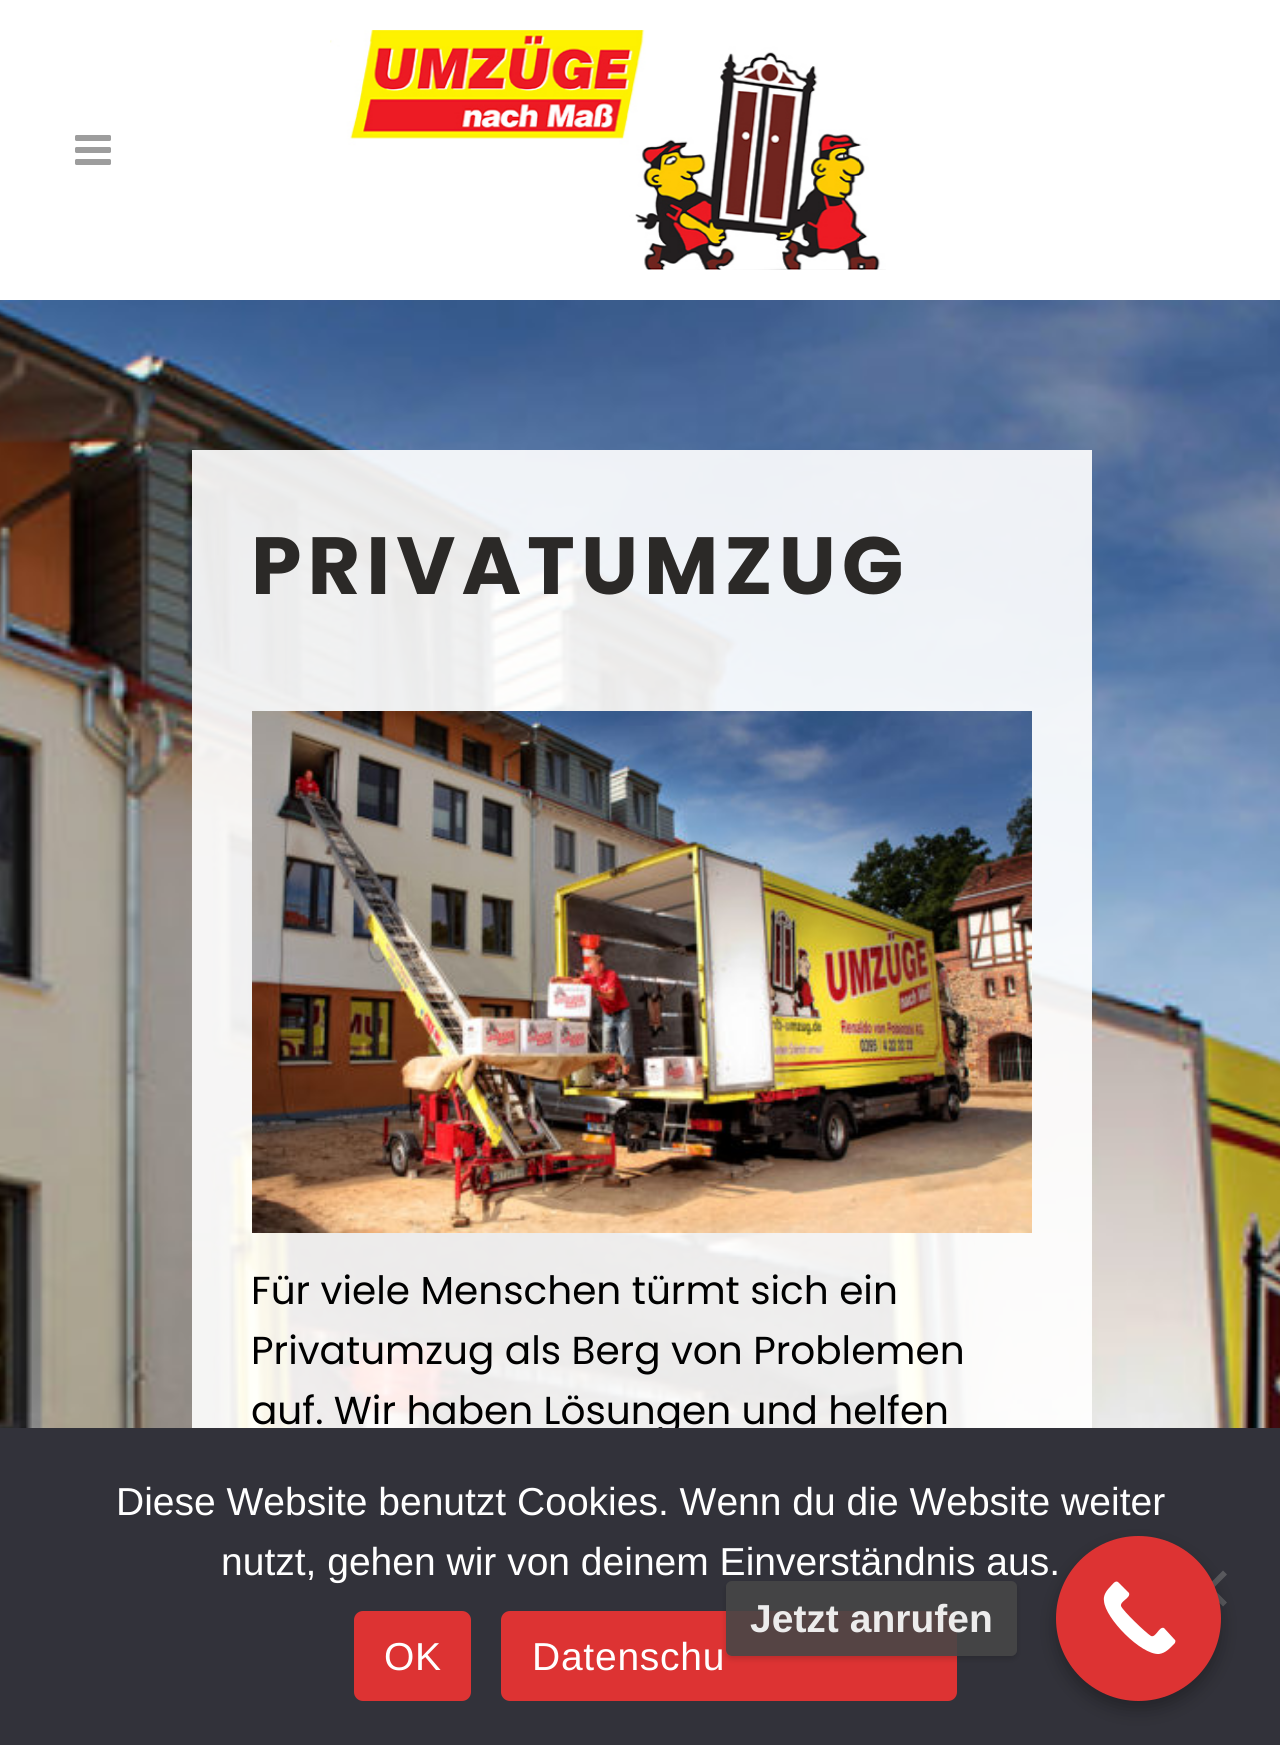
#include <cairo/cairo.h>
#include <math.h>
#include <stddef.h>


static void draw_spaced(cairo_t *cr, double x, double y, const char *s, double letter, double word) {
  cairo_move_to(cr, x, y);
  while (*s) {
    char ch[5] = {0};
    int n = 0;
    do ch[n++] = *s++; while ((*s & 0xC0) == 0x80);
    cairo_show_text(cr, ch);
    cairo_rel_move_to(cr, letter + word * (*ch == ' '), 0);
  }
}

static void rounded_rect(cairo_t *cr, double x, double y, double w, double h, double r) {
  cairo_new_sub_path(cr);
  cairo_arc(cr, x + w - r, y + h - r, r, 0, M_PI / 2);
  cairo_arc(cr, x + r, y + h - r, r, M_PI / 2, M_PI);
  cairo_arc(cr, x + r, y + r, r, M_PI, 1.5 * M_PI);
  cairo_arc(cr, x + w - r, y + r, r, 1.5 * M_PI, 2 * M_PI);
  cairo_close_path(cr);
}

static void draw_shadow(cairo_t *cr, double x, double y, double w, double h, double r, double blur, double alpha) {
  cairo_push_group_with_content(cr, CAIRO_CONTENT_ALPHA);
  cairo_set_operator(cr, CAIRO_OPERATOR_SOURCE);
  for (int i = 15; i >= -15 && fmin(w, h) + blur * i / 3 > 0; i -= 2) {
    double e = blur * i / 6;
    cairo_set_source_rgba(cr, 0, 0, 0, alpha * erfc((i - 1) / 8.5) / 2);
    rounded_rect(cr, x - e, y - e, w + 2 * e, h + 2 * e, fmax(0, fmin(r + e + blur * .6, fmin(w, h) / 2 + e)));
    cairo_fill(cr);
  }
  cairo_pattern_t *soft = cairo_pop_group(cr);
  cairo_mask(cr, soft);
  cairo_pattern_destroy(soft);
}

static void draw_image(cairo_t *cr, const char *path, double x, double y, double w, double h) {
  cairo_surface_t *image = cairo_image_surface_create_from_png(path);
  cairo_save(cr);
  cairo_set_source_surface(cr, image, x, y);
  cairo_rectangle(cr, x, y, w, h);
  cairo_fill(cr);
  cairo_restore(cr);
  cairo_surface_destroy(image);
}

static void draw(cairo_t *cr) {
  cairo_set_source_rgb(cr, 1, 1, 1);
  cairo_paint(cr);
  draw_image(cr, "images/1.png", 75, 135, 36, 30);
  draw_image(cr, "images/2.png", 330, 30, 556, 240);
  draw_image(cr, "images/3.png", 0, 300, 1280, 1128);
  cairo_set_source_rgba(cr, 1, 1, 1, 0.91);
  cairo_rectangle(cr, 192, 450, 900, 978);
  cairo_fill(cr);
  draw_image(cr, "images/4.png", 252, 711, 780, 522);
  cairo_select_font_face(cr, "Poppins", CAIRO_FONT_SLANT_NORMAL, CAIRO_FONT_WEIGHT_BOLD);
  cairo_set_font_size(cr, 81);
  cairo_set_source_rgb(cr, 43 / 255.0, 41 / 255.0, 39 / 255.0);
  draw_spaced(cr, 251, 594, "PRIVATUMZUG", 6, 0);
  cairo_select_font_face(cr, "Poppins", CAIRO_FONT_SLANT_NORMAL, CAIRO_FONT_WEIGHT_NORMAL);
  cairo_set_font_size(cr, 39);
  cairo_set_source_rgb(cr, 0, 0, 0);
  cairo_move_to(cr, 251, 1304);
  cairo_show_text(cr, "Für viele Menschen türmt sich ein");
  cairo_move_to(cr, 251, 1364);
  cairo_show_text(cr, "Privatumzug als Berg von Problemen");
  cairo_move_to(cr, 251, 1424);
  cairo_show_text(cr, "auf. Wir haben Lösungen und helfen");
  cairo_set_source_rgb(cr, 50 / 255.0, 50 / 255.0, 58 / 255.0);
  cairo_rectangle(cr, 0, 1428, 1280, 317);
  cairo_fill(cr);
  cairo_select_font_face(cr, "Liberation Sans", CAIRO_FONT_SLANT_NORMAL, CAIRO_FONT_WEIGHT_NORMAL);
  cairo_set_source_rgb(cr, 1, 1, 1);
  cairo_move_to(cr, 116, 1515);
  cairo_show_text(cr, "Diese Website benutzt Cookies. Wenn du die Website weiter");
  cairo_move_to(cr, 221, 1575);
  cairo_show_text(cr, "nutzt, gehen wir von deinem Einverständnis aus.");
  cairo_set_source_rgb(cr, 89 / 255.0, 89 / 255.0, 93 / 255.0);
  cairo_new_path(cr);
  cairo_move_to(cr, 1223, 1570.5);
  cairo_line_to(cr, 1227, 1574.5);
  cairo_line_to(cr, 1195, 1606.5);
  cairo_line_to(cr, 1191, 1602.5);
  cairo_close_path(cr);
  cairo_fill(cr);
  cairo_new_path(cr);
  cairo_move_to(cr, 1191, 1574.5);
  cairo_line_to(cr, 1195, 1570.5);
  cairo_line_to(cr, 1227, 1602.5);
  cairo_line_to(cr, 1223, 1606.5);
  cairo_close_path(cr);
  cairo_fill(cr);
  cairo_set_source_rgb(cr, 221 / 255.0, 51 / 255.0, 51 / 255.0);
  rounded_rect(cr, 354, 1611, 117, 90, 9);
  cairo_fill(cr);
  cairo_set_source_rgb(cr, 1, 1, 1);
  draw_spaced(cr, 384, 1670, "OK", 0.75, 0);
  cairo_set_source_rgb(cr, 221 / 255.0, 51 / 255.0, 51 / 255.0);
  rounded_rect(cr, 501, 1611, 456, 90, 9);
  cairo_fill(cr);
  cairo_set_source_rgb(cr, 1, 1, 1);
  draw_spaced(cr, 532, 1670, "Datenschu", 0.75, 0);
  cairo_set_source_rgb(cr, 0, 0, 0);
  draw_shadow(cr, 1056, 1545, 165, 165, 82.5, 9, 0.3);
  cairo_set_source_rgb(cr, 221 / 255.0, 51 / 255.0, 51 / 255.0);
  cairo_arc(cr, 1138.5, 1618.5, 82.5, 0, 2 * M_PI);
  cairo_fill(cr);
  cairo_set_source_rgb(cr, 1, 1, 1);
  cairo_new_path(cr);
  cairo_move_to(cr, 1175, 1643);
  cairo_curve_to(cr, 1170, 1648, 1166, 1653, 1159, 1654);
  cairo_curve_to(cr, 1141, 1655, 1105, 1618, 1104, 1601);
  cairo_curve_to(cr, 1103, 1596, 1106, 1591, 1110, 1587);
  cairo_curve_to(cr, 1112, 1585, 1115, 1580, 1118, 1582);
  cairo_line_to(cr, 1129, 1593);
  cairo_curve_to(cr, 1131, 1598, 1120, 1601, 1121, 1606);
  cairo_curve_to(cr, 1123, 1611, 1146, 1633, 1151, 1636);
  cairo_curve_to(cr, 1156, 1638, 1159, 1626, 1164, 1628);
  cairo_line_to(cr, 1175, 1640);
  cairo_curve_to(cr, 1176, 1641, 1175, 1642, 1175, 1643);
  cairo_close_path(cr);
  cairo_fill(cr);
  cairo_save(cr);
  cairo_set_fill_rule(cr, CAIRO_FILL_RULE_EVEN_ODD);
  cairo_new_path(cr);
  cairo_move_to(cr, 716, 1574);
  cairo_line_to(cr, 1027, 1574);
  cairo_line_to(cr, 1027, 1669);
  cairo_line_to(cr, 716, 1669);
  cairo_close_path(cr);
  cairo_move_to(cr, 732, 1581);
  cairo_line_to(cr, 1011, 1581);
  cairo_curve_to(cr, 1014.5, 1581, 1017, 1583.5, 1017, 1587);
  cairo_line_to(cr, 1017, 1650);
  cairo_curve_to(cr, 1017, 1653.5, 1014.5, 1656, 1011, 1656);
  cairo_line_to(cr, 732, 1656);
  cairo_curve_to(cr, 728.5, 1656, 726, 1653.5, 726, 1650);
  cairo_line_to(cr, 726, 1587);
  cairo_curve_to(cr, 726, 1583.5, 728.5, 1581, 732, 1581);
  cairo_close_path(cr);
  cairo_clip(cr);
  cairo_set_source_rgb(cr, 0, 0, 0);
  draw_shadow(cr, 726, 1584, 291, 75, 6, 3, 0.15);
  cairo_restore(cr);
  cairo_set_source_rgba(cr, 70 / 255.0, 70 / 255.0, 70 / 255.0, 0.9);
  rounded_rect(cr, 726, 1581, 291, 75, 6);
  cairo_fill(cr);
  cairo_select_font_face(cr, "Liberation Sans", CAIRO_FONT_SLANT_NORMAL, CAIRO_FONT_WEIGHT_BOLD);
  cairo_set_source_rgb(cr, 236 / 255.0, 236 / 255.0, 236 / 255.0);
  cairo_move_to(cr, 750, 1632);
  cairo_show_text(cr, "Jetzt anrufen");
}

int main(void) {
  cairo_surface_t *surface = cairo_image_surface_create(CAIRO_FORMAT_RGB24, 1280, 1745);
  cairo_t *cr = cairo_create(surface);
  cairo_font_options_t *options = cairo_font_options_create();
  cairo_font_options_set_hint_metrics(options, CAIRO_HINT_METRICS_OFF);
  cairo_font_options_set_hint_style(options, CAIRO_HINT_STYLE_NONE);
  cairo_set_font_options(cr, options);
  cairo_set_miter_limit(cr, 4);
  draw(cr);
  cairo_surface_write_to_png(surface, "out.png");
  cairo_font_options_destroy(options);
  cairo_destroy(cr);
  cairo_surface_destroy(surface);
  return 0;
}
